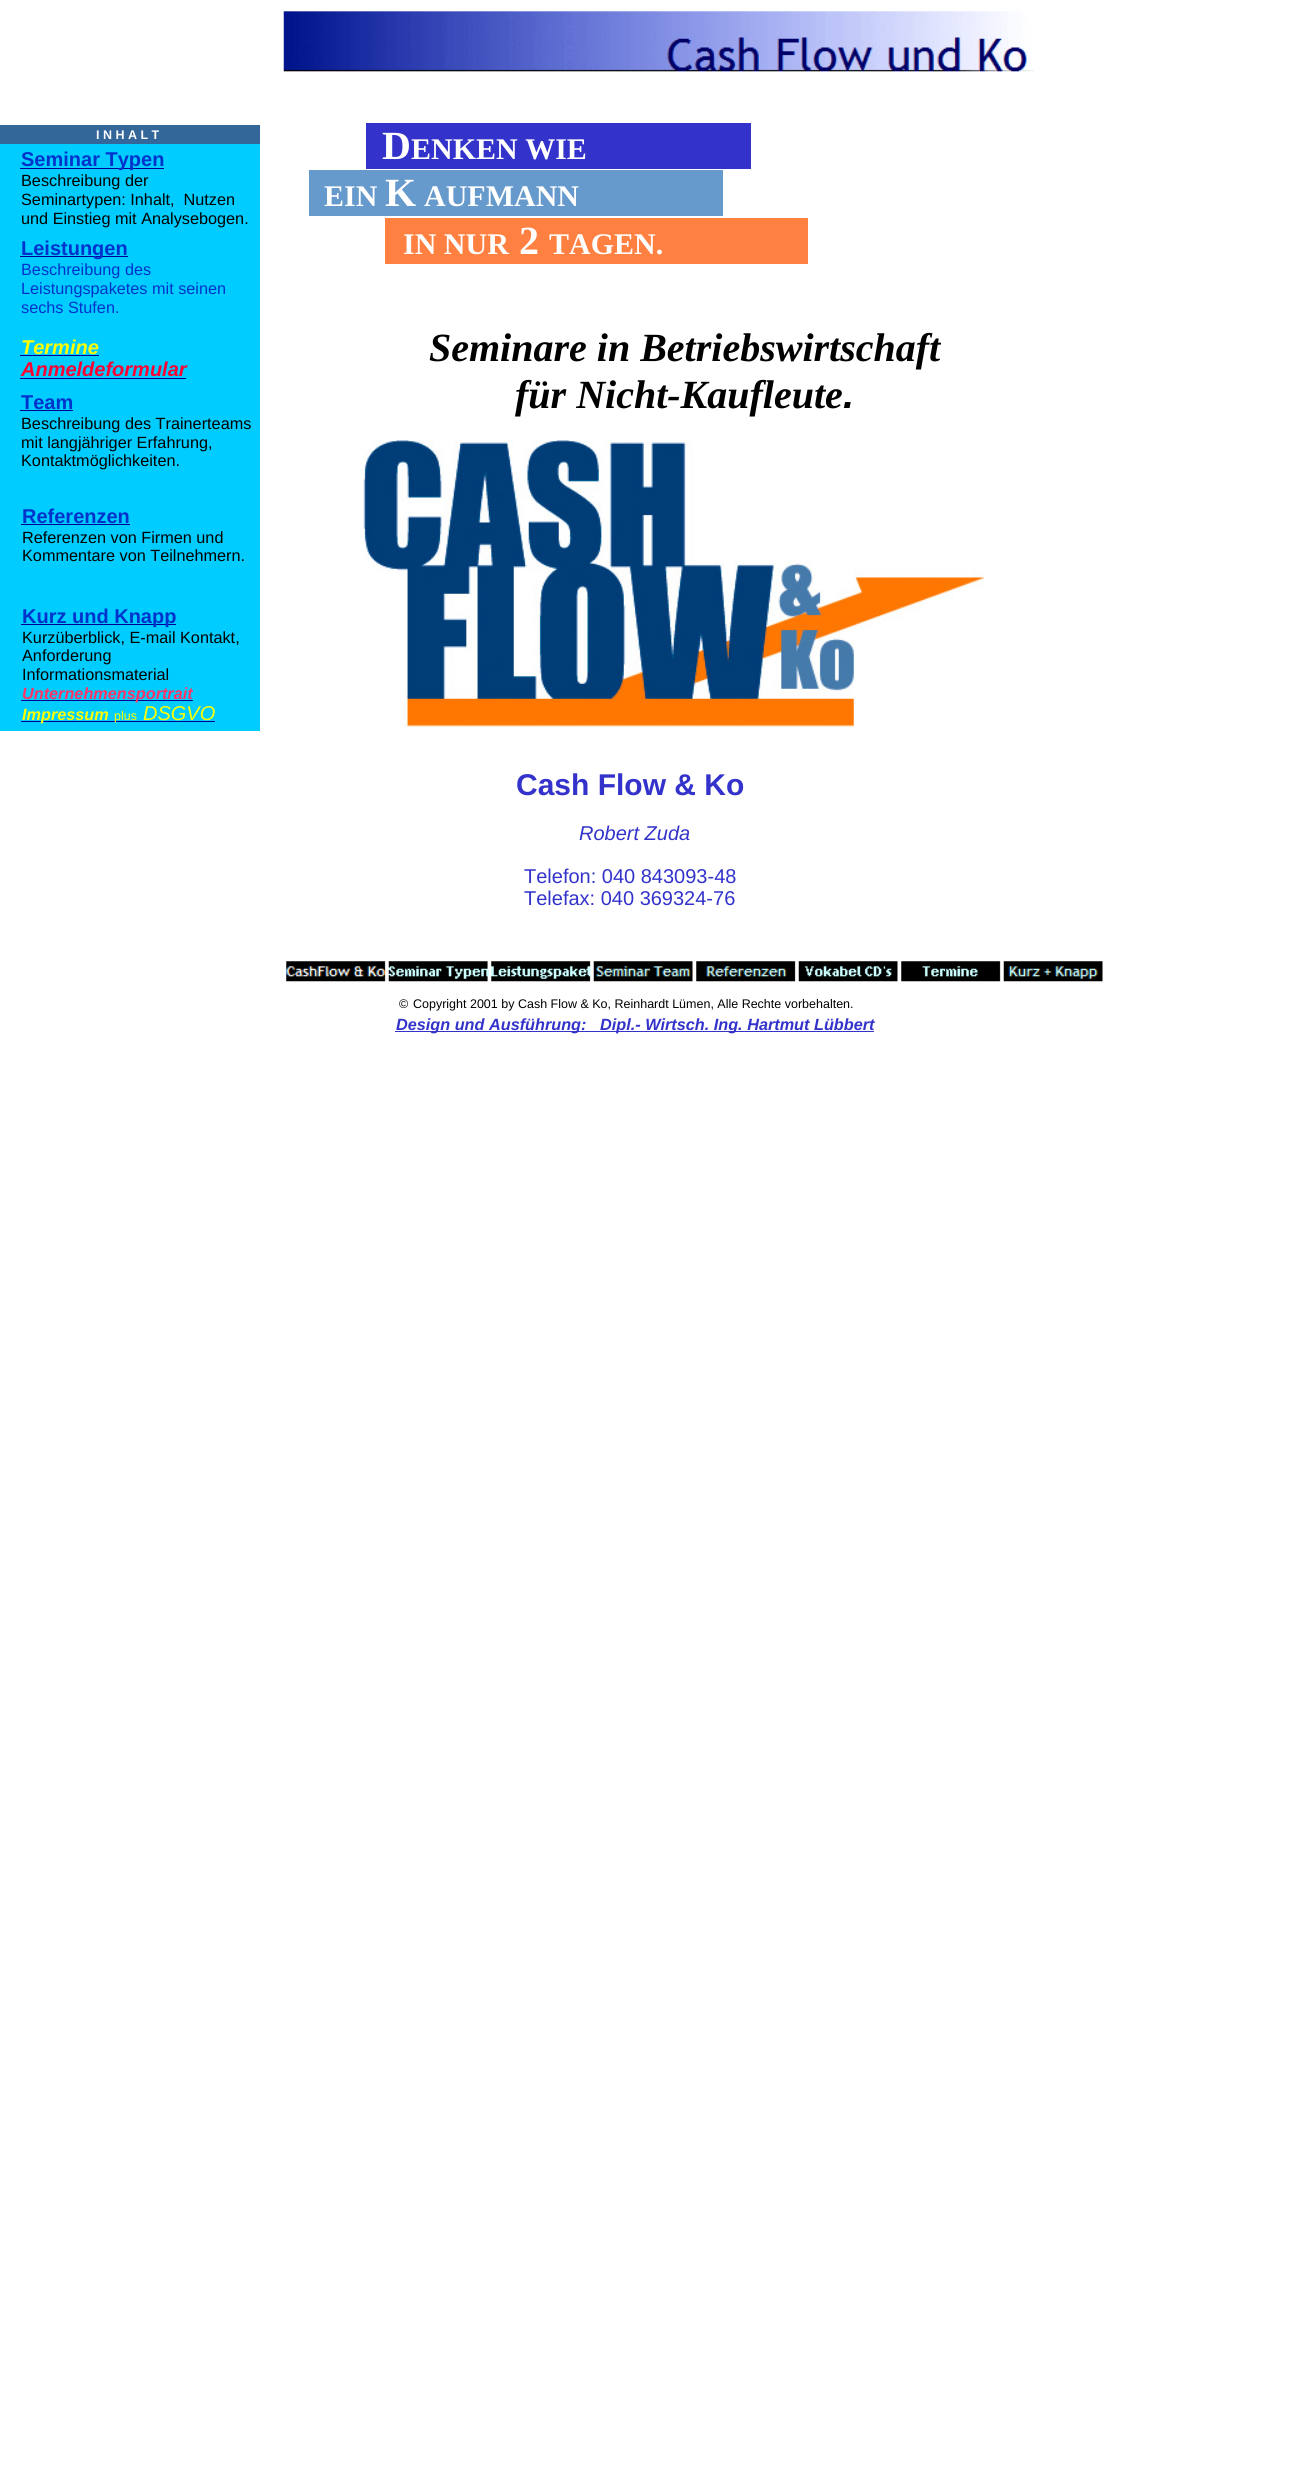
#include <cairo/cairo.h>
#include <math.h>
#include <stddef.h>


static void draw_image(cairo_t *cr, const char *path, double x, double y, double w, double h) {
  cairo_surface_t *image = cairo_image_surface_create_from_png(path);
  cairo_save(cr);
  cairo_set_source_surface(cr, image, x, y);
  cairo_rectangle(cr, x, y, w, h);
  cairo_fill(cr);
  cairo_restore(cr);
  cairo_surface_destroy(image);
}

static void draw(cairo_t *cr) {
  cairo_set_source_rgb(cr, 1, 1, 1);
  cairo_paint(cr);
  cairo_set_source_rgb(cr, 51 / 255.0, 102 / 255.0, 153 / 255.0);
  cairo_rectangle(cr, 0, 125, 260, 19);
  cairo_fill(cr);
  cairo_set_source_rgb(cr, 0, 204 / 255.0, 1);
  cairo_rectangle(cr, 0, 144, 260, 89);
  cairo_fill(cr);
  cairo_set_source_rgb(cr, 0, 0, 153 / 255.0);
  cairo_rectangle(cr, 20, 168, 144, 1);
  cairo_fill(cr);
  cairo_set_source_rgb(cr, 0, 204 / 255.0, 1);
  cairo_rectangle(cr, 0, 233, 260, 153);
  cairo_fill(cr);
  cairo_set_source_rgb(cr, 0, 0, 153 / 255.0);
  cairo_rectangle(cr, 20, 256, 108, 1);
  cairo_fill(cr);
  cairo_rectangle(cr, 20, 355, 79, 1);
  cairo_fill(cr);
  cairo_rectangle(cr, 20, 378, 166, 1);
  cairo_fill(cr);
  cairo_set_source_rgb(cr, 0, 204 / 255.0, 1);
  cairo_rectangle(cr, 0, 386, 260, 113);
  cairo_fill(cr);
  cairo_set_source_rgb(cr, 0, 0, 153 / 255.0);
  cairo_rectangle(cr, 20, 410, 53, 1);
  cairo_fill(cr);
  cairo_set_source_rgb(cr, 0, 204 / 255.0, 1);
  cairo_rectangle(cr, 0, 499, 260, 100);
  cairo_fill(cr);
  cairo_set_source_rgb(cr, 0, 0, 153 / 255.0);
  cairo_rectangle(cr, 21, 524, 109, 1);
  cairo_fill(cr);
  cairo_set_source_rgb(cr, 0, 204 / 255.0, 1);
  cairo_rectangle(cr, 0, 599, 260, 132);
  cairo_fill(cr);
  cairo_set_source_rgb(cr, 0, 0, 153 / 255.0);
  cairo_rectangle(cr, 21, 624, 155, 1);
  cairo_fill(cr);
  cairo_rectangle(cr, 21, 700, 172, 1);
  cairo_fill(cr);
  cairo_rectangle(cr, 21, 721, 194, 1);
  cairo_fill(cr);
  draw_image(cr, "images/1.png", 283, 11, 751, 61);
  cairo_set_source_rgb(cr, 51 / 255.0, 51 / 255.0, 204 / 255.0);
  cairo_rectangle(cr, 366, 123, 385, 46);
  cairo_fill(cr);
  cairo_set_source_rgb(cr, 102 / 255.0, 153 / 255.0, 204 / 255.0);
  cairo_rectangle(cr, 309, 170, 414, 46);
  cairo_fill(cr);
  cairo_set_source_rgb(cr, 1, 128 / 255.0, 64 / 255.0);
  cairo_rectangle(cr, 385, 218, 423, 46);
  cairo_fill(cr);
  draw_image(cr, "images/2.png", 363, 440, 621, 287);
  draw_image(cr, "images/3.png", 286, 961, 100, 21);
  draw_image(cr, "images/4.png", 388, 961, 101, 21);
  draw_image(cr, "images/5.png", 491, 961, 101, 21);
  draw_image(cr, "images/6.png", 593, 961, 100, 21);
  draw_image(cr, "images/7.png", 696, 961, 100, 21);
  draw_image(cr, "images/8.png", 798, 961, 100, 21);
  draw_image(cr, "images/9.png", 901, 961, 100, 21);
  draw_image(cr, "images/10.png", 1003, 961, 100, 21);
  cairo_set_source_rgb(cr, 51 / 255.0, 51 / 255.0, 204 / 255.0);
  cairo_rectangle(cr, 395, 1031, 479, 1);
  cairo_fill(cr);
  cairo_select_font_face(cr, "Liberation Sans", CAIRO_FONT_SLANT_NORMAL, CAIRO_FONT_WEIGHT_BOLD);
  cairo_set_font_size(cr, 12.5);
  cairo_set_source_rgb(cr, 1, 1, 1);
  cairo_move_to(cr, 96, 139);
  cairo_show_text(cr, "I N H A L T");
  cairo_set_font_size(cr, 20);
  cairo_set_source_rgb(cr, 0, 51 / 255.0, 204 / 255.0);
  cairo_move_to(cr, 21, 166);
  cairo_show_text(cr, "Seminar Typen");
  cairo_select_font_face(cr, "Liberation Sans", CAIRO_FONT_SLANT_NORMAL, CAIRO_FONT_WEIGHT_NORMAL);
  cairo_set_font_size(cr, 16.25);
  cairo_set_source_rgb(cr, 0, 0, 0);
  cairo_move_to(cr, 21, 186);
  cairo_show_text(cr, "Beschreibung der");
  cairo_move_to(cr, 21, 205);
  cairo_show_text(cr, "Seminartypen: Inhalt,  Nutzen");
  cairo_move_to(cr, 21, 224);
  cairo_show_text(cr, "und Einstieg mit Analysebogen.");
  cairo_select_font_face(cr, "Liberation Sans", CAIRO_FONT_SLANT_NORMAL, CAIRO_FONT_WEIGHT_BOLD);
  cairo_set_font_size(cr, 20);
  cairo_set_source_rgb(cr, 0, 51 / 255.0, 204 / 255.0);
  cairo_move_to(cr, 21, 255);
  cairo_show_text(cr, "Leistungen");
  cairo_select_font_face(cr, "Liberation Sans", CAIRO_FONT_SLANT_NORMAL, CAIRO_FONT_WEIGHT_NORMAL);
  cairo_set_font_size(cr, 16.25);
  cairo_move_to(cr, 21, 275);
  cairo_show_text(cr, "Beschreibung des");
  cairo_move_to(cr, 21, 294);
  cairo_show_text(cr, "Leistungspaketes mit seinen");
  cairo_move_to(cr, 21, 313);
  cairo_show_text(cr, "sechs Stufen.");
  cairo_select_font_face(cr, "Liberation Sans", CAIRO_FONT_SLANT_ITALIC, CAIRO_FONT_WEIGHT_BOLD);
  cairo_set_font_size(cr, 20);
  cairo_set_source_rgb(cr, 1, 1, 0);
  cairo_move_to(cr, 21, 354);
  cairo_show_text(cr, "Termine");
  cairo_set_source_rgb(cr, 1, 0, 51 / 255.0);
  cairo_move_to(cr, 21, 376);
  cairo_show_text(cr, "Anmeldeformular");
  cairo_select_font_face(cr, "Liberation Sans", CAIRO_FONT_SLANT_NORMAL, CAIRO_FONT_WEIGHT_BOLD);
  cairo_set_source_rgb(cr, 0, 51 / 255.0, 204 / 255.0);
  cairo_move_to(cr, 21, 409);
  cairo_show_text(cr, "Team");
  cairo_select_font_face(cr, "Liberation Sans", CAIRO_FONT_SLANT_NORMAL, CAIRO_FONT_WEIGHT_NORMAL);
  cairo_set_font_size(cr, 16.25);
  cairo_set_source_rgb(cr, 0, 0, 0);
  cairo_move_to(cr, 21, 429);
  cairo_show_text(cr, "Beschreibung des Trainerteams");
  cairo_move_to(cr, 21, 448);
  cairo_show_text(cr, "mit langjähriger Erfahrung,");
  cairo_move_to(cr, 21, 466);
  cairo_show_text(cr, "Kontaktmöglichkeiten.");
  cairo_select_font_face(cr, "Liberation Sans", CAIRO_FONT_SLANT_NORMAL, CAIRO_FONT_WEIGHT_BOLD);
  cairo_set_font_size(cr, 20);
  cairo_set_source_rgb(cr, 0, 51 / 255.0, 204 / 255.0);
  cairo_move_to(cr, 22, 523);
  cairo_show_text(cr, "Referenzen");
  cairo_select_font_face(cr, "Liberation Sans", CAIRO_FONT_SLANT_NORMAL, CAIRO_FONT_WEIGHT_NORMAL);
  cairo_set_font_size(cr, 16.25);
  cairo_set_source_rgb(cr, 0, 0, 0);
  cairo_move_to(cr, 22, 543);
  cairo_show_text(cr, "Referenzen von Firmen und");
  cairo_move_to(cr, 22, 561);
  cairo_show_text(cr, "Kommentare von Teilnehmern.");
  cairo_select_font_face(cr, "Liberation Sans", CAIRO_FONT_SLANT_NORMAL, CAIRO_FONT_WEIGHT_BOLD);
  cairo_set_font_size(cr, 20);
  cairo_set_source_rgb(cr, 0, 51 / 255.0, 204 / 255.0);
  cairo_move_to(cr, 22, 623);
  cairo_show_text(cr, "Kurz und Knapp");
  cairo_select_font_face(cr, "Liberation Sans", CAIRO_FONT_SLANT_NORMAL, CAIRO_FONT_WEIGHT_NORMAL);
  cairo_set_font_size(cr, 16.25);
  cairo_set_source_rgb(cr, 0, 0, 0);
  cairo_move_to(cr, 22, 643);
  cairo_show_text(cr, "Kurzüberblick, E-mail Kontakt,");
  cairo_move_to(cr, 22, 661);
  cairo_show_text(cr, "Anforderung");
  cairo_move_to(cr, 22, 680);
  cairo_show_text(cr, "Informationsmaterial");
  cairo_select_font_face(cr, "Liberation Sans", CAIRO_FONT_SLANT_ITALIC, CAIRO_FONT_WEIGHT_BOLD);
  cairo_set_source_rgb(cr, 1, 51 / 255.0, 102 / 255.0);
  cairo_move_to(cr, 22, 699);
  cairo_show_text(cr, "Unternehmensportrait");
  cairo_set_source_rgb(cr, 1, 1, 0);
  cairo_move_to(cr, 22, 720);
  cairo_show_text(cr, "Impressum");
  cairo_select_font_face(cr, "Liberation Sans", CAIRO_FONT_SLANT_NORMAL, CAIRO_FONT_WEIGHT_NORMAL);
  cairo_set_font_size(cr, 12.5);
  cairo_move_to(cr, 114, 720);
  cairo_show_text(cr, "plus");
  cairo_select_font_face(cr, "Liberation Sans", CAIRO_FONT_SLANT_ITALIC, CAIRO_FONT_WEIGHT_NORMAL);
  cairo_set_font_size(cr, 20);
  cairo_move_to(cr, 143, 720);
  cairo_show_text(cr, "DSGVO");
  cairo_select_font_face(cr, "Liberation Serif", CAIRO_FONT_SLANT_NORMAL, CAIRO_FONT_WEIGHT_BOLD);
  cairo_set_font_size(cr, 40);
  cairo_set_source_rgb(cr, 1, 1, 1);
  cairo_move_to(cr, 382, 159);
  cairo_show_text(cr, "D");
  cairo_set_font_size(cr, 30);
  cairo_move_to(cr, 411, 159);
  cairo_show_text(cr, "ENKEN WIE");
  cairo_move_to(cr, 324, 206);
  cairo_show_text(cr, "EIN");
  cairo_set_font_size(cr, 40);
  cairo_move_to(cr, 385, 206);
  cairo_show_text(cr, "K");
  cairo_set_font_size(cr, 30);
  cairo_move_to(cr, 424, 206);
  cairo_show_text(cr, "AUFMANN");
  cairo_move_to(cr, 403, 254);
  cairo_show_text(cr, "IN NUR");
  cairo_set_font_size(cr, 40);
  cairo_move_to(cr, 519, 254);
  cairo_show_text(cr, "2");
  cairo_set_font_size(cr, 30);
  cairo_move_to(cr, 549, 254);
  cairo_show_text(cr, "TAGEN.");
  cairo_select_font_face(cr, "Liberation Serif", CAIRO_FONT_SLANT_ITALIC, CAIRO_FONT_WEIGHT_BOLD);
  cairo_set_font_size(cr, 40);
  cairo_set_source_rgb(cr, 0, 0, 0);
  cairo_move_to(cr, 429, 361);
  cairo_show_text(cr, "Seminare in Betriebswirtschaft");
  cairo_move_to(cr, 515, 408);
  cairo_show_text(cr, "für Nicht-Kaufleute");
  cairo_select_font_face(cr, "Liberation Sans", CAIRO_FONT_SLANT_ITALIC, CAIRO_FONT_WEIGHT_BOLD);
  cairo_move_to(cr, 843, 408);
  cairo_show_text(cr, ".");
  cairo_select_font_face(cr, "Liberation Sans", CAIRO_FONT_SLANT_NORMAL, CAIRO_FONT_WEIGHT_BOLD);
  cairo_set_font_size(cr, 30);
  cairo_set_source_rgb(cr, 51 / 255.0, 51 / 255.0, 204 / 255.0);
  cairo_move_to(cr, 516, 795);
  cairo_show_text(cr, "Cash Flow & Ko");
  cairo_select_font_face(cr, "Liberation Sans", CAIRO_FONT_SLANT_ITALIC, CAIRO_FONT_WEIGHT_NORMAL);
  cairo_set_font_size(cr, 20);
  cairo_move_to(cr, 579, 840);
  cairo_show_text(cr, "Robert Zuda");
  cairo_select_font_face(cr, "Liberation Sans", CAIRO_FONT_SLANT_NORMAL, CAIRO_FONT_WEIGHT_NORMAL);
  cairo_move_to(cr, 524, 883);
  cairo_show_text(cr, "Telefon: 040 843093-48");
  cairo_move_to(cr, 524, 905);
  cairo_show_text(cr, "Telefax: 040 369324-76");
  cairo_set_font_size(cr, 12.5);
  cairo_set_source_rgb(cr, 0, 0, 0);
  cairo_move_to(cr, 399, 1008);
  cairo_show_text(cr, "©");
  cairo_move_to(cr, 413, 1008);
  cairo_show_text(cr, "Copyright 2001 by Cash Flow & Ko, Reinhardt Lümen, Alle Rechte vorbehalten.");
  cairo_select_font_face(cr, "Liberation Sans", CAIRO_FONT_SLANT_ITALIC, CAIRO_FONT_WEIGHT_BOLD);
  cairo_set_font_size(cr, 16.25);
  cairo_set_source_rgb(cr, 51 / 255.0, 51 / 255.0, 204 / 255.0);
  cairo_move_to(cr, 396, 1030);
  cairo_show_text(cr, "Design und Ausführung:");
  cairo_move_to(cr, 600, 1030);
  cairo_show_text(cr, "Dipl.- Wirtsch. Ing. Hartmut Lübbert");
}

int main(void) {
  cairo_surface_t *surface = cairo_image_surface_create(CAIRO_FORMAT_RGB24, 1314, 2467);
  cairo_t *cr = cairo_create(surface);
  cairo_font_options_t *options = cairo_font_options_create();
  cairo_font_options_set_hint_metrics(options, CAIRO_HINT_METRICS_OFF);
  cairo_font_options_set_hint_style(options, CAIRO_HINT_STYLE_NONE);
  cairo_set_font_options(cr, options);
  cairo_set_miter_limit(cr, 4);
  draw(cr);
  cairo_surface_write_to_png(surface, "out.png");
  cairo_font_options_destroy(options);
  cairo_destroy(cr);
  cairo_surface_destroy(surface);
  return 0;
}
